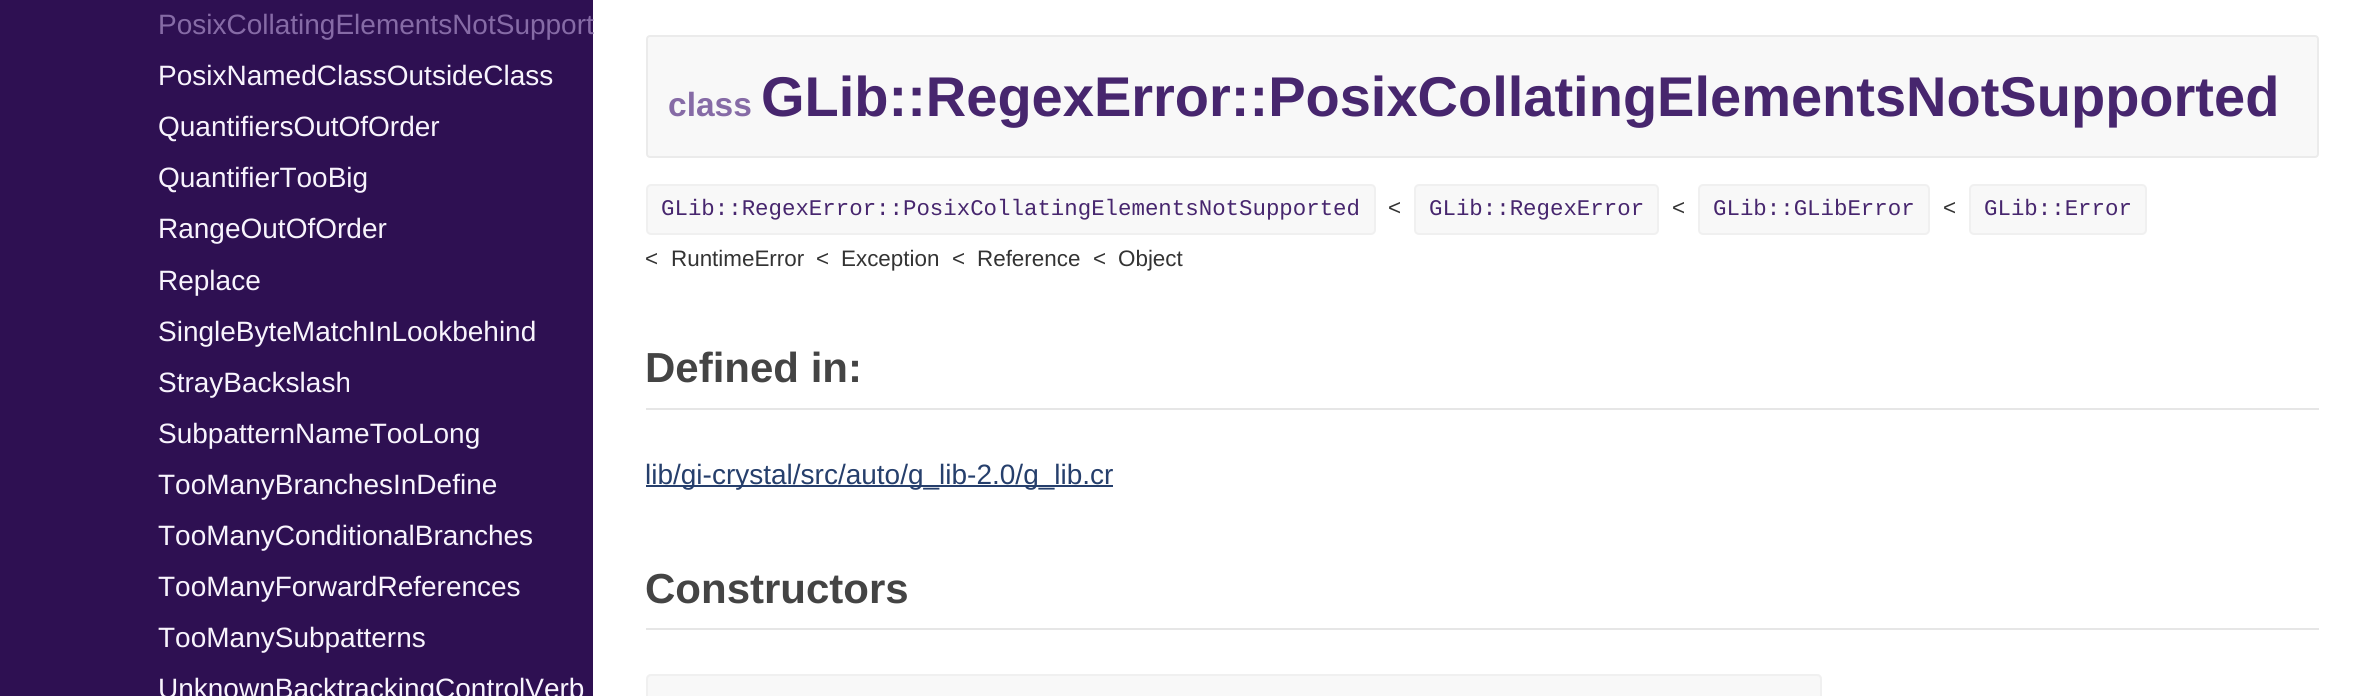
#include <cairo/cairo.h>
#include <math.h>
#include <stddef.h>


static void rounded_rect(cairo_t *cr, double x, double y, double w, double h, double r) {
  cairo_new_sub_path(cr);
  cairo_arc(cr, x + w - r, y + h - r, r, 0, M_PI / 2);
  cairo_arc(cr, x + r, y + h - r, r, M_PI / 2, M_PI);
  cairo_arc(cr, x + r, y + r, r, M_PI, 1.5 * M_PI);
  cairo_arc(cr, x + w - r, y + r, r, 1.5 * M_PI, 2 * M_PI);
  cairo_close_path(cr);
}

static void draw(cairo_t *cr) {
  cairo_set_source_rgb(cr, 1, 1, 1);
  cairo_paint(cr);
  cairo_set_source_rgb(cr, 46 / 255.0, 16 / 255.0, 82 / 255.0);
  cairo_rectangle(cr, 0, 0, 593, 696);
  cairo_fill(cr);
  cairo_set_source_rgb(cr, 248 / 255.0, 248 / 255.0, 248 / 255.0);
  rounded_rect(cr, 647, 36, 1671, 121, 3);
  cairo_fill_preserve(cr);
  cairo_set_source_rgb(cr, 235 / 255.0, 235 / 255.0, 235 / 255.0);
  cairo_stroke(cr);
  cairo_set_source_rgb(cr, 248 / 255.0, 248 / 255.0, 248 / 255.0);
  rounded_rect(cr, 647, 185, 728, 49, 4);
  cairo_fill_preserve(cr);
  cairo_set_source_rgb(cr, 240 / 255.0, 240 / 255.0, 240 / 255.0);
  cairo_stroke(cr);
  cairo_set_source_rgb(cr, 248 / 255.0, 248 / 255.0, 248 / 255.0);
  rounded_rect(cr, 1415, 185, 243, 49, 4);
  cairo_fill_preserve(cr);
  cairo_set_source_rgb(cr, 240 / 255.0, 240 / 255.0, 240 / 255.0);
  cairo_stroke(cr);
  cairo_set_source_rgb(cr, 248 / 255.0, 248 / 255.0, 248 / 255.0);
  rounded_rect(cr, 1699, 185, 230, 49, 4);
  cairo_fill_preserve(cr);
  cairo_set_source_rgb(cr, 240 / 255.0, 240 / 255.0, 240 / 255.0);
  cairo_stroke(cr);
  cairo_set_source_rgb(cr, 248 / 255.0, 248 / 255.0, 248 / 255.0);
  rounded_rect(cr, 1970, 185, 176, 49, 4);
  cairo_fill_preserve(cr);
  cairo_set_source_rgb(cr, 240 / 255.0, 240 / 255.0, 240 / 255.0);
  cairo_stroke(cr);
  cairo_set_source_rgb(cr, 230 / 255.0, 230 / 255.0, 230 / 255.0);
  cairo_rectangle(cr, 646, 408, 1673, 2);
  cairo_fill(cr);
  cairo_set_source_rgb(cr, 38 / 255.0, 63 / 255.0, 108 / 255.0);
  cairo_rectangle(cr, 646, 485, 467, 2);
  cairo_fill(cr);
  cairo_set_source_rgb(cr, 230 / 255.0, 230 / 255.0, 230 / 255.0);
  cairo_rectangle(cr, 646, 628, 1673, 2);
  cairo_fill(cr);
  cairo_set_source_rgb(cr, 248 / 255.0, 248 / 255.0, 248 / 255.0);
  cairo_new_path(cr);
  cairo_move_to(cr, 651, 674);
  cairo_line_to(cr, 1817, 674);
  cairo_curve_to(cr, 1820, 674, 1822, 676, 1822, 679);
  cairo_line_to(cr, 1822, 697);
  cairo_line_to(cr, 646, 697);
  cairo_line_to(cr, 646, 679);
  cairo_curve_to(cr, 646, 676, 648, 674, 651, 674);
  cairo_close_path(cr);
  cairo_fill(cr);
  rounded_rect(cr, 647, 675, 1174, 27, 4);
  cairo_set_source_rgb(cr, 240 / 255.0, 240 / 255.0, 240 / 255.0);
  cairo_stroke(cr);
  cairo_select_font_face(cr, "Liberation Sans", CAIRO_FONT_SLANT_NORMAL, CAIRO_FONT_WEIGHT_NORMAL);
  cairo_set_font_size(cr, 28);
  cairo_set_source_rgb(cr, 134 / 255.0, 107 / 255.0, 166 / 255.0);
  cairo_move_to(cr, 158, 34);
  cairo_show_text(cr, "PosixCollatingElementsNotSupport");
  cairo_set_source_rgb(cr, 248 / 255.0, 244 / 255.0, 253 / 255.0);
  cairo_move_to(cr, 158, 85);
  cairo_show_text(cr, "PosixNamedClassOutsideClass");
  cairo_move_to(cr, 158, 136);
  cairo_show_text(cr, "QuantifiersOutOfOrder");
  cairo_move_to(cr, 158, 187);
  cairo_show_text(cr, "QuantifierTooBig");
  cairo_move_to(cr, 158, 238);
  cairo_show_text(cr, "RangeOutOfOrder");
  cairo_move_to(cr, 158, 290);
  cairo_show_text(cr, "Replace");
  cairo_move_to(cr, 158, 341);
  cairo_show_text(cr, "SingleByteMatchInLookbehind");
  cairo_move_to(cr, 158, 392);
  cairo_show_text(cr, "StrayBackslash");
  cairo_move_to(cr, 158, 443);
  cairo_show_text(cr, "SubpatternNameTooLong");
  cairo_move_to(cr, 158, 494);
  cairo_show_text(cr, "TooManyBranchesInDefine");
  cairo_move_to(cr, 158, 545);
  cairo_show_text(cr, "TooManyConditionalBranches");
  cairo_move_to(cr, 158, 596);
  cairo_show_text(cr, "TooManyForwardReferences");
  cairo_move_to(cr, 158, 647);
  cairo_show_text(cr, "TooManySubpatterns");
  cairo_move_to(cr, 158, 698);
  cairo_show_text(cr, "UnknownBacktrackingControlVerb");
  cairo_select_font_face(cr, "Liberation Sans", CAIRO_FONT_SLANT_NORMAL, CAIRO_FONT_WEIGHT_BOLD);
  cairo_set_font_size(cr, 33.5);
  cairo_set_source_rgb(cr, 134 / 255.0, 107 / 255.0, 166 / 255.0);
  cairo_move_to(cr, 668, 116);
  cairo_show_text(cr, "class");
  cairo_set_font_size(cr, 56);
  cairo_set_source_rgb(cr, 71 / 255.0, 38 / 255.0, 110 / 255.0);
  cairo_move_to(cr, 761, 116);
  cairo_show_text(cr, "GLib::RegexError::PosixCollatingElementsNotSupported");
  cairo_select_font_face(cr, "Liberation Mono", CAIRO_FONT_SLANT_NORMAL, CAIRO_FONT_WEIGHT_NORMAL);
  cairo_set_font_size(cr, 22.4);
  cairo_move_to(cr, 661, 215);
  cairo_show_text(cr, "GLib::RegexError::PosixCollatingElementsNotSupported");
  cairo_select_font_face(cr, "Liberation Sans", CAIRO_FONT_SLANT_NORMAL, CAIRO_FONT_WEIGHT_NORMAL);
  cairo_set_source_rgb(cr, 51 / 255.0, 51 / 255.0, 51 / 255.0);
  cairo_move_to(cr, 1388, 215);
  cairo_show_text(cr, "<");
  cairo_select_font_face(cr, "Liberation Mono", CAIRO_FONT_SLANT_NORMAL, CAIRO_FONT_WEIGHT_NORMAL);
  cairo_set_source_rgb(cr, 71 / 255.0, 38 / 255.0, 110 / 255.0);
  cairo_move_to(cr, 1429, 215);
  cairo_show_text(cr, "GLib::RegexError");
  cairo_select_font_face(cr, "Liberation Sans", CAIRO_FONT_SLANT_NORMAL, CAIRO_FONT_WEIGHT_NORMAL);
  cairo_set_source_rgb(cr, 51 / 255.0, 51 / 255.0, 51 / 255.0);
  cairo_move_to(cr, 1672, 215);
  cairo_show_text(cr, "<");
  cairo_select_font_face(cr, "Liberation Mono", CAIRO_FONT_SLANT_NORMAL, CAIRO_FONT_WEIGHT_NORMAL);
  cairo_set_source_rgb(cr, 71 / 255.0, 38 / 255.0, 110 / 255.0);
  cairo_move_to(cr, 1713, 215);
  cairo_show_text(cr, "GLib::GLibError");
  cairo_select_font_face(cr, "Liberation Sans", CAIRO_FONT_SLANT_NORMAL, CAIRO_FONT_WEIGHT_NORMAL);
  cairo_set_source_rgb(cr, 51 / 255.0, 51 / 255.0, 51 / 255.0);
  cairo_move_to(cr, 1943, 215);
  cairo_show_text(cr, "<");
  cairo_select_font_face(cr, "Liberation Mono", CAIRO_FONT_SLANT_NORMAL, CAIRO_FONT_WEIGHT_NORMAL);
  cairo_set_source_rgb(cr, 71 / 255.0, 38 / 255.0, 110 / 255.0);
  cairo_move_to(cr, 1984, 215);
  cairo_show_text(cr, "GLib::Error");
  cairo_select_font_face(cr, "Liberation Sans", CAIRO_FONT_SLANT_NORMAL, CAIRO_FONT_WEIGHT_NORMAL);
  cairo_set_source_rgb(cr, 51 / 255.0, 51 / 255.0, 51 / 255.0);
  cairo_move_to(cr, 645, 266);
  cairo_show_text(cr, "<");
  cairo_move_to(cr, 671, 266);
  cairo_show_text(cr, "RuntimeError");
  cairo_move_to(cr, 816, 266);
  cairo_show_text(cr, "<");
  cairo_move_to(cr, 841, 266);
  cairo_show_text(cr, "Exception");
  cairo_move_to(cr, 952, 266);
  cairo_show_text(cr, "<");
  cairo_move_to(cr, 977, 266);
  cairo_show_text(cr, "Reference");
  cairo_move_to(cr, 1093, 266);
  cairo_show_text(cr, "<");
  cairo_move_to(cr, 1118, 266);
  cairo_show_text(cr, "Object");
  cairo_select_font_face(cr, "Liberation Sans", CAIRO_FONT_SLANT_NORMAL, CAIRO_FONT_WEIGHT_BOLD);
  cairo_set_font_size(cr, 42);
  cairo_set_source_rgb(cr, 68 / 255.0, 68 / 255.0, 68 / 255.0);
  cairo_move_to(cr, 645, 382);
  cairo_show_text(cr, "Defined in:");
  cairo_select_font_face(cr, "Liberation Sans", CAIRO_FONT_SLANT_NORMAL, CAIRO_FONT_WEIGHT_NORMAL);
  cairo_set_font_size(cr, 28);
  cairo_set_source_rgb(cr, 38 / 255.0, 63 / 255.0, 108 / 255.0);
  cairo_move_to(cr, 645, 484);
  cairo_show_text(cr, "lib/gi-crystal/src/auto/g_lib-2.0/g_lib.cr");
  cairo_select_font_face(cr, "Liberation Sans", CAIRO_FONT_SLANT_NORMAL, CAIRO_FONT_WEIGHT_BOLD);
  cairo_set_font_size(cr, 42);
  cairo_set_source_rgb(cr, 68 / 255.0, 68 / 255.0, 68 / 255.0);
  cairo_move_to(cr, 645, 603);
  cairo_show_text(cr, "Constructors");
}

int main(void) {
  cairo_surface_t *surface = cairo_image_surface_create(CAIRO_FORMAT_RGB24, 2370, 696);
  cairo_t *cr = cairo_create(surface);
  cairo_font_options_t *options = cairo_font_options_create();
  cairo_font_options_set_hint_metrics(options, CAIRO_HINT_METRICS_OFF);
  cairo_font_options_set_hint_style(options, CAIRO_HINT_STYLE_NONE);
  cairo_set_font_options(cr, options);
  cairo_set_miter_limit(cr, 4);
  draw(cr);
  cairo_surface_write_to_png(surface, "out.png");
  cairo_font_options_destroy(options);
  cairo_destroy(cr);
  cairo_surface_destroy(surface);
  return 0;
}
